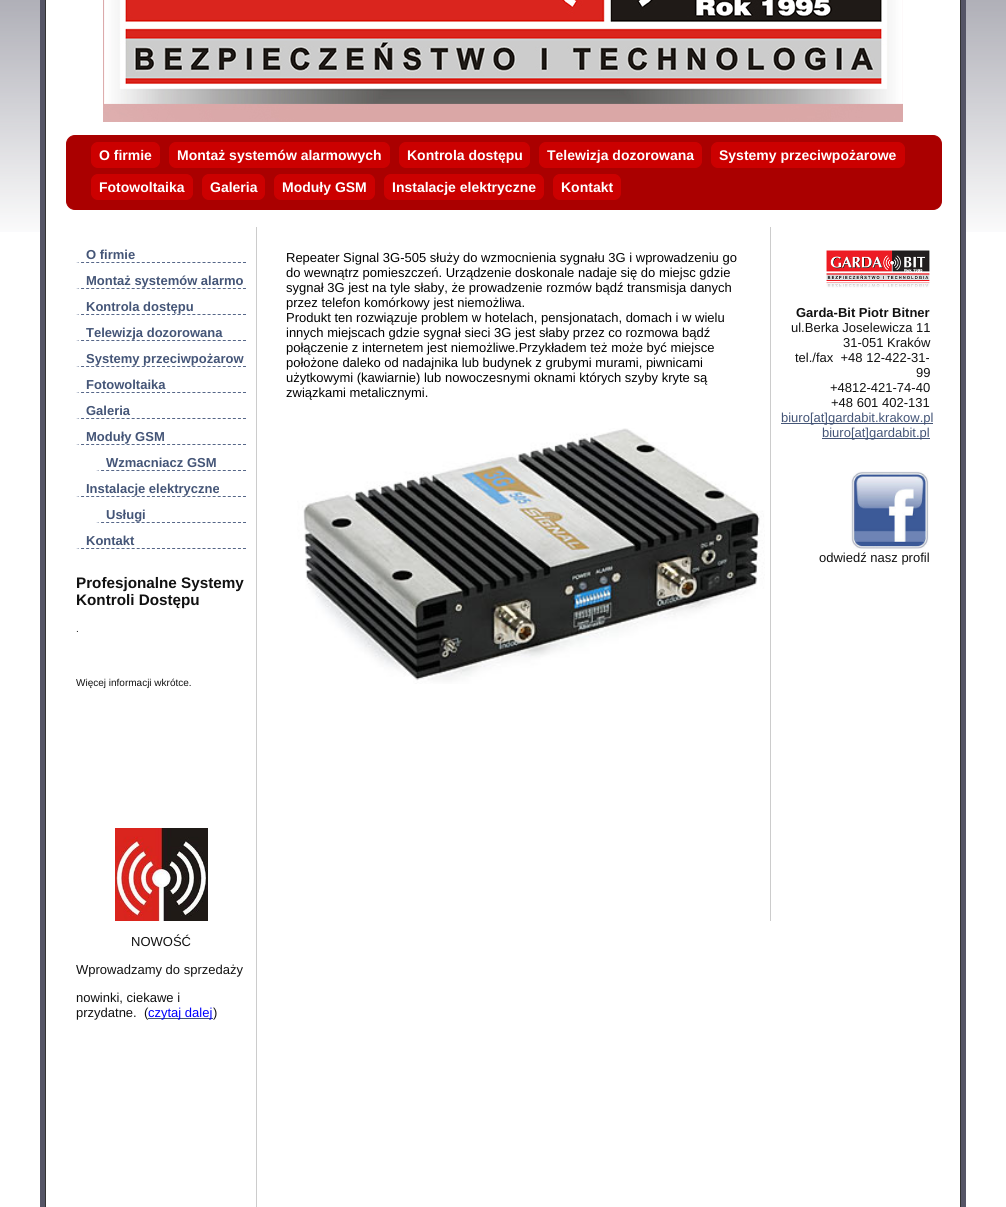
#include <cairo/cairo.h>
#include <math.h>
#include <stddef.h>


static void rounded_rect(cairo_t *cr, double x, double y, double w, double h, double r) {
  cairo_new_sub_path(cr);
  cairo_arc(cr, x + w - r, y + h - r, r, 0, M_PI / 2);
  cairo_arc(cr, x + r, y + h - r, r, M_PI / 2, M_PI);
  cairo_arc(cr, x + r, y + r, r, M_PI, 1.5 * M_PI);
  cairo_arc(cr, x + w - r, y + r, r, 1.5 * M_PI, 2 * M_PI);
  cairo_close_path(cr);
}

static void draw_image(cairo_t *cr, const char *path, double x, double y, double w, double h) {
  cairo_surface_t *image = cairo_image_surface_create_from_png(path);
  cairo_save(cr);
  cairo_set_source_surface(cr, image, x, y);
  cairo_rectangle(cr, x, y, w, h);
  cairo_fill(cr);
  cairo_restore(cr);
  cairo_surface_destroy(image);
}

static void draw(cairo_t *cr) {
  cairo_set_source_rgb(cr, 1, 1, 1);
  cairo_paint(cr);
  draw_image(cr, "images/1.png", 0, 0, 1006, 232);
  cairo_set_source_rgb(cr, 85 / 255.0, 85 / 255.0, 102 / 255.0);
  cairo_rectangle(cr, 40, 0, 926, 1207);
  cairo_fill(cr);
  cairo_set_source_rgb(cr, 1, 1, 1);
  cairo_rectangle(cr, 45.5, -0.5, 915, 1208);
  cairo_fill_preserve(cr);
  cairo_set_source_rgb(cr, 51 / 255.0, 51 / 255.0, 51 / 255.0);
  cairo_set_line_width(cr, 1);
  cairo_stroke(cr);
  draw_image(cr, "images/2.png", 103, 0, 800, 122);
  cairo_set_source_rgb(cr, 170 / 255.0, 0, 0);
  rounded_rect(cr, 66.5, 135.5, 875, 74, 8.5);
  cairo_fill_preserve(cr);
  cairo_stroke(cr);
  cairo_set_source_rgb(cr, 204 / 255.0, 0, 0);
  rounded_rect(cr, 91.5, 142.5, 68, 25, 6.5);
  cairo_fill_preserve(cr);
  cairo_stroke(cr);
  rounded_rect(cr, 169.5, 142.5, 220, 25, 6.5);
  cairo_fill_preserve(cr);
  cairo_stroke(cr);
  rounded_rect(cr, 399.5, 142.5, 130, 25, 6.5);
  cairo_fill_preserve(cr);
  cairo_stroke(cr);
  rounded_rect(cr, 539.5, 142.5, 162, 25, 6.5);
  cairo_fill_preserve(cr);
  cairo_stroke(cr);
  rounded_rect(cr, 711.5, 142.5, 193, 25, 6.5);
  cairo_fill_preserve(cr);
  cairo_stroke(cr);
  rounded_rect(cr, 91.5, 174.5, 101, 25, 6.5);
  cairo_fill_preserve(cr);
  cairo_stroke(cr);
  rounded_rect(cr, 202.5, 174.5, 62, 25, 6.5);
  cairo_fill_preserve(cr);
  cairo_stroke(cr);
  rounded_rect(cr, 274.5, 174.5, 100, 25, 6.5);
  cairo_fill_preserve(cr);
  cairo_stroke(cr);
  rounded_rect(cr, 384.5, 174.5, 159, 25, 6.5);
  cairo_fill_preserve(cr);
  cairo_stroke(cr);
  rounded_rect(cr, 553.5, 174.5, 67, 25, 6.5);
  cairo_fill_preserve(cr);
  cairo_stroke(cr);
  cairo_set_source_rgb(cr, 204 / 255.0, 204 / 255.0, 204 / 255.0);
  cairo_rectangle(cr, 256, 227, 1, 980);
  cairo_fill(cr);
  cairo_new_path(cr);
  cairo_move_to(cr, 76, 262.5);
  cairo_line_to(cr, 246, 262.5);
  cairo_set_source_rgb(cr, 85 / 255.0, 102 / 255.0, 136 / 255.0);
  cairo_set_dash(cr, (double[]){3, 2.06}, 2, 0);
  cairo_stroke(cr);
  cairo_set_source_rgb(cr, 1, 1, 1);
  cairo_new_path(cr);
  cairo_move_to(cr, 76, 263);
  cairo_line_to(cr, 76, 247);
  cairo_line_to(cr, 81, 247);
  cairo_line_to(cr, 81, 262);
  cairo_close_path(cr);
  cairo_fill(cr);
  cairo_new_path(cr);
  cairo_move_to(cr, 76, 288.5);
  cairo_line_to(cr, 246, 288.5);
  cairo_set_source_rgb(cr, 85 / 255.0, 102 / 255.0, 136 / 255.0);
  cairo_stroke(cr);
  cairo_set_source_rgb(cr, 1, 1, 1);
  cairo_new_path(cr);
  cairo_move_to(cr, 76, 289);
  cairo_line_to(cr, 76, 273);
  cairo_line_to(cr, 81, 273);
  cairo_line_to(cr, 81, 288);
  cairo_close_path(cr);
  cairo_fill(cr);
  cairo_new_path(cr);
  cairo_move_to(cr, 76, 314.5);
  cairo_line_to(cr, 246, 314.5);
  cairo_set_source_rgb(cr, 85 / 255.0, 102 / 255.0, 136 / 255.0);
  cairo_stroke(cr);
  cairo_set_source_rgb(cr, 1, 1, 1);
  cairo_new_path(cr);
  cairo_move_to(cr, 76, 315);
  cairo_line_to(cr, 76, 299);
  cairo_line_to(cr, 81, 299);
  cairo_line_to(cr, 81, 314);
  cairo_close_path(cr);
  cairo_fill(cr);
  cairo_new_path(cr);
  cairo_move_to(cr, 76, 340.5);
  cairo_line_to(cr, 246, 340.5);
  cairo_set_source_rgb(cr, 85 / 255.0, 102 / 255.0, 136 / 255.0);
  cairo_stroke(cr);
  cairo_set_source_rgb(cr, 1, 1, 1);
  cairo_new_path(cr);
  cairo_move_to(cr, 76, 341);
  cairo_line_to(cr, 76, 325);
  cairo_line_to(cr, 81, 325);
  cairo_line_to(cr, 81, 340);
  cairo_close_path(cr);
  cairo_fill(cr);
  cairo_new_path(cr);
  cairo_move_to(cr, 76, 366.5);
  cairo_line_to(cr, 246, 366.5);
  cairo_set_source_rgb(cr, 85 / 255.0, 102 / 255.0, 136 / 255.0);
  cairo_stroke(cr);
  cairo_set_source_rgb(cr, 1, 1, 1);
  cairo_new_path(cr);
  cairo_move_to(cr, 76, 367);
  cairo_line_to(cr, 76, 351);
  cairo_line_to(cr, 81, 351);
  cairo_line_to(cr, 81, 366);
  cairo_close_path(cr);
  cairo_fill(cr);
  cairo_new_path(cr);
  cairo_move_to(cr, 76, 392.5);
  cairo_line_to(cr, 246, 392.5);
  cairo_set_source_rgb(cr, 85 / 255.0, 102 / 255.0, 136 / 255.0);
  cairo_stroke(cr);
  cairo_set_source_rgb(cr, 1, 1, 1);
  cairo_new_path(cr);
  cairo_move_to(cr, 76, 393);
  cairo_line_to(cr, 76, 377);
  cairo_line_to(cr, 81, 377);
  cairo_line_to(cr, 81, 392);
  cairo_close_path(cr);
  cairo_fill(cr);
  cairo_new_path(cr);
  cairo_move_to(cr, 76, 418.5);
  cairo_line_to(cr, 246, 418.5);
  cairo_set_source_rgb(cr, 85 / 255.0, 102 / 255.0, 136 / 255.0);
  cairo_stroke(cr);
  cairo_set_source_rgb(cr, 1, 1, 1);
  cairo_new_path(cr);
  cairo_move_to(cr, 76, 419);
  cairo_line_to(cr, 76, 403);
  cairo_line_to(cr, 81, 403);
  cairo_line_to(cr, 81, 418);
  cairo_close_path(cr);
  cairo_fill(cr);
  cairo_new_path(cr);
  cairo_move_to(cr, 76, 444.5);
  cairo_line_to(cr, 246, 444.5);
  cairo_set_source_rgb(cr, 85 / 255.0, 102 / 255.0, 136 / 255.0);
  cairo_stroke(cr);
  cairo_set_source_rgb(cr, 1, 1, 1);
  cairo_new_path(cr);
  cairo_move_to(cr, 76, 445);
  cairo_line_to(cr, 76, 429);
  cairo_line_to(cr, 81, 429);
  cairo_line_to(cr, 81, 444);
  cairo_close_path(cr);
  cairo_fill(cr);
  cairo_new_path(cr);
  cairo_move_to(cr, 96, 470.5);
  cairo_line_to(cr, 246, 470.5);
  cairo_set_source_rgb(cr, 85 / 255.0, 102 / 255.0, 136 / 255.0);
  cairo_set_dash(cr, (double[]){3, 2.07}, 2, 0);
  cairo_stroke(cr);
  cairo_set_source_rgb(cr, 1, 1, 1);
  cairo_new_path(cr);
  cairo_move_to(cr, 96, 471);
  cairo_line_to(cr, 96, 455);
  cairo_line_to(cr, 101, 455);
  cairo_line_to(cr, 101, 470);
  cairo_close_path(cr);
  cairo_fill(cr);
  cairo_new_path(cr);
  cairo_move_to(cr, 76, 496.5);
  cairo_line_to(cr, 246, 496.5);
  cairo_set_source_rgb(cr, 85 / 255.0, 102 / 255.0, 136 / 255.0);
  cairo_set_dash(cr, (double[]){3, 2.06}, 2, 0);
  cairo_stroke(cr);
  cairo_set_source_rgb(cr, 1, 1, 1);
  cairo_new_path(cr);
  cairo_move_to(cr, 76, 497);
  cairo_line_to(cr, 76, 481);
  cairo_line_to(cr, 81, 481);
  cairo_line_to(cr, 81, 496);
  cairo_close_path(cr);
  cairo_fill(cr);
  cairo_new_path(cr);
  cairo_move_to(cr, 96, 522.5);
  cairo_line_to(cr, 246, 522.5);
  cairo_set_source_rgb(cr, 85 / 255.0, 102 / 255.0, 136 / 255.0);
  cairo_set_dash(cr, (double[]){3, 2.07}, 2, 0);
  cairo_stroke(cr);
  cairo_set_source_rgb(cr, 1, 1, 1);
  cairo_new_path(cr);
  cairo_move_to(cr, 96, 523);
  cairo_line_to(cr, 96, 507);
  cairo_line_to(cr, 101, 507);
  cairo_line_to(cr, 101, 522);
  cairo_close_path(cr);
  cairo_fill(cr);
  cairo_new_path(cr);
  cairo_move_to(cr, 76, 548.5);
  cairo_line_to(cr, 246, 548.5);
  cairo_set_source_rgb(cr, 85 / 255.0, 102 / 255.0, 136 / 255.0);
  cairo_set_dash(cr, (double[]){3, 2.06}, 2, 0);
  cairo_stroke(cr);
  cairo_set_source_rgb(cr, 1, 1, 1);
  cairo_new_path(cr);
  cairo_move_to(cr, 76, 549);
  cairo_line_to(cr, 76, 533);
  cairo_line_to(cr, 81, 533);
  cairo_line_to(cr, 81, 548);
  cairo_close_path(cr);
  cairo_fill(cr);
  draw_image(cr, "images/3.png", 115, 828, 93, 93);
  draw_image(cr, "images/4.png", 297, 428, 468, 256);
  cairo_set_source_rgb(cr, 204 / 255.0, 204 / 255.0, 204 / 255.0);
  cairo_rectangle(cr, 770, 227, 1, 694);
  cairo_fill(cr);
  draw_image(cr, "images/5.png", 826, 250, 104, 38);
  cairo_set_source_rgb(cr, 68 / 255.0, 85 / 255.0, 119 / 255.0);
  cairo_rectangle(cr, 781, 423, 152, 1);
  cairo_fill(cr);
  cairo_rectangle(cr, 822, 438, 108, 1);
  cairo_fill(cr);
  draw_image(cr, "images/6.png", 850, 471, 79, 78);
  cairo_select_font_face(cr, "Liberation Sans", CAIRO_FONT_SLANT_NORMAL, CAIRO_FONT_WEIGHT_BOLD);
  cairo_set_font_size(cr, 14);
  cairo_set_source_rgb(cr, 1, 1, 1);
  cairo_move_to(cr, 99, 160);
  cairo_show_text(cr, "O firmie");
  cairo_move_to(cr, 177, 160);
  cairo_show_text(cr, "Montaż systemów alarmowych");
  cairo_move_to(cr, 407, 160);
  cairo_show_text(cr, "Kontrola dostępu");
  cairo_move_to(cr, 547, 160);
  cairo_show_text(cr, "Telewizja dozorowana");
  cairo_move_to(cr, 719, 160);
  cairo_show_text(cr, "Systemy przeciwpożarowe");
  cairo_move_to(cr, 99, 192);
  cairo_show_text(cr, "Fotowoltaika");
  cairo_move_to(cr, 210, 192);
  cairo_show_text(cr, "Galeria");
  cairo_move_to(cr, 282, 192);
  cairo_show_text(cr, "Moduły GSM");
  cairo_move_to(cr, 392, 192);
  cairo_show_text(cr, "Instalacje elektryczne");
  cairo_move_to(cr, 561, 192);
  cairo_show_text(cr, "Kontakt");
  cairo_set_font_size(cr, 13);
  cairo_set_source_rgb(cr, 68 / 255.0, 85 / 255.0, 119 / 255.0);
  cairo_move_to(cr, 86, 259);
  cairo_show_text(cr, "O firmie");
  cairo_move_to(cr, 86, 285);
  cairo_show_text(cr, "Montaż systemów alarmo");
  cairo_move_to(cr, 86, 311);
  cairo_show_text(cr, "Kontrola dostępu");
  cairo_move_to(cr, 86, 337);
  cairo_show_text(cr, "Telewizja dozorowana");
  cairo_move_to(cr, 86, 363);
  cairo_show_text(cr, "Systemy przeciwpożarow");
  cairo_move_to(cr, 86, 389);
  cairo_show_text(cr, "Fotowoltaika");
  cairo_move_to(cr, 86, 415);
  cairo_show_text(cr, "Galeria");
  cairo_move_to(cr, 86, 441);
  cairo_show_text(cr, "Moduły GSM");
  cairo_move_to(cr, 106, 467);
  cairo_show_text(cr, "Wzmacniacz GSM");
  cairo_move_to(cr, 86, 493);
  cairo_show_text(cr, "Instalacje elektryczne");
  cairo_move_to(cr, 106, 519);
  cairo_show_text(cr, "Usługi");
  cairo_move_to(cr, 86, 545);
  cairo_show_text(cr, "Kontakt");
  cairo_set_font_size(cr, 15.25);
  cairo_set_source_rgb(cr, 17 / 255.0, 17 / 255.0, 17 / 255.0);
  cairo_move_to(cr, 76, 588);
  cairo_show_text(cr, "Profesjonalne Systemy");
  cairo_move_to(cr, 76, 605);
  cairo_show_text(cr, "Kontroli Dostępu");
  cairo_select_font_face(cr, "Liberation Sans", CAIRO_FONT_SLANT_NORMAL, CAIRO_FONT_WEIGHT_NORMAL);
  cairo_set_font_size(cr, 10);
  cairo_move_to(cr, 76, 632);
  cairo_show_text(cr, ".");
  cairo_move_to(cr, 76, 686);
  cairo_show_text(cr, "Więcej informacji wkrótce.");
  cairo_set_font_size(cr, 13);
  cairo_move_to(cr, 131, 946);
  cairo_show_text(cr, "NOWOŚĆ");
  cairo_move_to(cr, 76, 974);
  cairo_show_text(cr, "Wprowadzamy do sprzedaży");
  cairo_move_to(cr, 76, 1002);
  cairo_show_text(cr, "nowinki, ciekawe i");
  cairo_move_to(cr, 76, 1017);
  cairo_show_text(cr, "przydatne.  (");
  cairo_set_source_rgb(cr, 68 / 255.0, 85 / 255.0, 119 / 255.0);
  cairo_rectangle(cr, 148, 1018, 65, 1);
  cairo_fill(cr);
  cairo_set_source_rgb(cr, 0, 0, 1);
  cairo_move_to(cr, 148, 1017);
  cairo_show_text(cr, "czytaj dalej");
  cairo_set_source_rgb(cr, 17 / 255.0, 17 / 255.0, 17 / 255.0);
  cairo_move_to(cr, 213, 1017);
  cairo_show_text(cr, ")");
  cairo_set_source_rgb(cr, 0, 0, 0);
  cairo_move_to(cr, 286, 262);
  cairo_show_text(cr, "Repeater Signal 3G-505 służy do wzmocnienia sygnału 3G i wprowadzeniu go");
  cairo_move_to(cr, 286, 277);
  cairo_show_text(cr, "do wewnątrz pomieszczeń. Urządzenie doskonale nadaje się do miejsc gdzie");
  cairo_move_to(cr, 286, 292);
  cairo_show_text(cr, "sygnał 3G jest na tyle słaby, że prowadzenie rozmów bądź transmisja danych");
  cairo_move_to(cr, 286, 307);
  cairo_show_text(cr, "przez telefon komórkowy jest niemożliwa.");
  cairo_move_to(cr, 286, 322);
  cairo_show_text(cr, "Produkt ten rozwiązuje problem w hotelach, pensjonatach, domach i w wielu");
  cairo_move_to(cr, 286, 337);
  cairo_show_text(cr, "innych miejscach gdzie sygnał sieci 3G jest słaby przez co rozmowa bądź");
  cairo_move_to(cr, 286, 352);
  cairo_show_text(cr, "połączenie z internetem jest niemożliwe.Przykładem też może być miejsce");
  cairo_move_to(cr, 286, 367);
  cairo_show_text(cr, "położone daleko od nadajnika lub budynek z grubymi murami, piwnicami");
  cairo_move_to(cr, 286, 382);
  cairo_show_text(cr, "użytkowymi (kawiarnie) lub nowoczesnymi oknami których szyby kryte są");
  cairo_move_to(cr, 286, 397);
  cairo_show_text(cr, "związkami metalicznymi.");
  cairo_select_font_face(cr, "Liberation Sans", CAIRO_FONT_SLANT_NORMAL, CAIRO_FONT_WEIGHT_BOLD);
  cairo_set_source_rgb(cr, 17 / 255.0, 17 / 255.0, 17 / 255.0);
  cairo_move_to(cr, 796, 317);
  cairo_show_text(cr, "Garda-Bit Piotr Bitner");
  cairo_select_font_face(cr, "Liberation Sans", CAIRO_FONT_SLANT_NORMAL, CAIRO_FONT_WEIGHT_NORMAL);
  cairo_move_to(cr, 791, 332);
  cairo_show_text(cr, "ul.Berka Joselewicza 11");
  cairo_move_to(cr, 843, 347);
  cairo_show_text(cr, "31-051 Kraków");
  cairo_move_to(cr, 795, 362);
  cairo_show_text(cr, "tel./fax  +48 12-422-31-");
  cairo_move_to(cr, 916, 377);
  cairo_show_text(cr, "99");
  cairo_move_to(cr, 830, 392);
  cairo_show_text(cr, "+4812-421-74-40");
  cairo_move_to(cr, 831, 407);
  cairo_show_text(cr, "+48 601 402-131");
  cairo_set_source_rgb(cr, 68 / 255.0, 85 / 255.0, 119 / 255.0);
  cairo_move_to(cr, 781, 422);
  cairo_show_text(cr, "biuro[at]gardabit.krakow.pl");
  cairo_move_to(cr, 822, 437);
  cairo_show_text(cr, "biuro[at]gardabit.pl");
  cairo_set_source_rgb(cr, 17 / 255.0, 17 / 255.0, 17 / 255.0);
  cairo_move_to(cr, 819, 562);
  cairo_show_text(cr, "odwiedź nasz profil");
}

int main(void) {
  cairo_surface_t *surface = cairo_image_surface_create(CAIRO_FORMAT_RGB24, 1006, 1207);
  cairo_t *cr = cairo_create(surface);
  cairo_font_options_t *options = cairo_font_options_create();
  cairo_font_options_set_hint_metrics(options, CAIRO_HINT_METRICS_OFF);
  cairo_font_options_set_hint_style(options, CAIRO_HINT_STYLE_NONE);
  cairo_set_font_options(cr, options);
  cairo_set_miter_limit(cr, 4);
  draw(cr);
  cairo_surface_write_to_png(surface, "out.png");
  cairo_font_options_destroy(options);
  cairo_destroy(cr);
  cairo_surface_destroy(surface);
  return 0;
}
